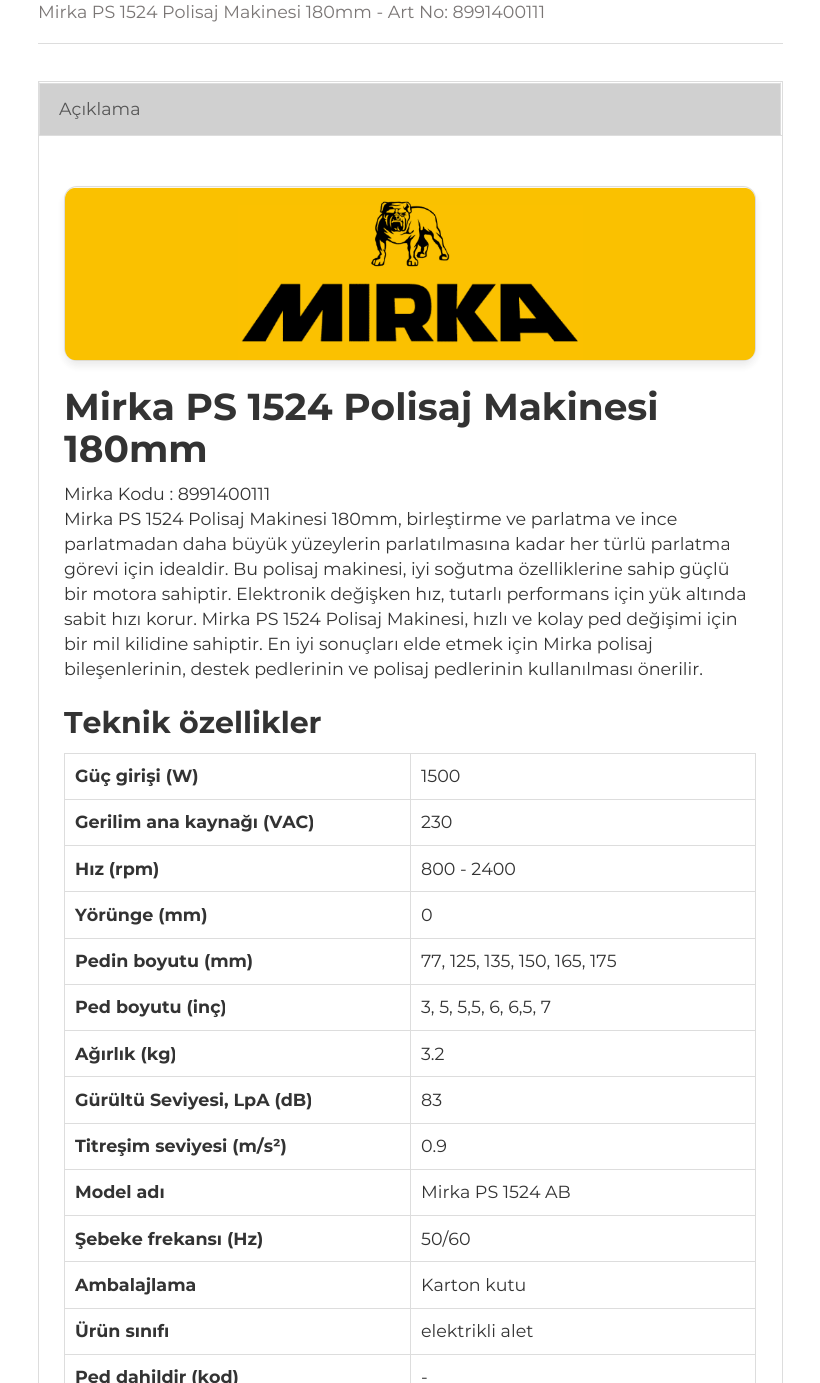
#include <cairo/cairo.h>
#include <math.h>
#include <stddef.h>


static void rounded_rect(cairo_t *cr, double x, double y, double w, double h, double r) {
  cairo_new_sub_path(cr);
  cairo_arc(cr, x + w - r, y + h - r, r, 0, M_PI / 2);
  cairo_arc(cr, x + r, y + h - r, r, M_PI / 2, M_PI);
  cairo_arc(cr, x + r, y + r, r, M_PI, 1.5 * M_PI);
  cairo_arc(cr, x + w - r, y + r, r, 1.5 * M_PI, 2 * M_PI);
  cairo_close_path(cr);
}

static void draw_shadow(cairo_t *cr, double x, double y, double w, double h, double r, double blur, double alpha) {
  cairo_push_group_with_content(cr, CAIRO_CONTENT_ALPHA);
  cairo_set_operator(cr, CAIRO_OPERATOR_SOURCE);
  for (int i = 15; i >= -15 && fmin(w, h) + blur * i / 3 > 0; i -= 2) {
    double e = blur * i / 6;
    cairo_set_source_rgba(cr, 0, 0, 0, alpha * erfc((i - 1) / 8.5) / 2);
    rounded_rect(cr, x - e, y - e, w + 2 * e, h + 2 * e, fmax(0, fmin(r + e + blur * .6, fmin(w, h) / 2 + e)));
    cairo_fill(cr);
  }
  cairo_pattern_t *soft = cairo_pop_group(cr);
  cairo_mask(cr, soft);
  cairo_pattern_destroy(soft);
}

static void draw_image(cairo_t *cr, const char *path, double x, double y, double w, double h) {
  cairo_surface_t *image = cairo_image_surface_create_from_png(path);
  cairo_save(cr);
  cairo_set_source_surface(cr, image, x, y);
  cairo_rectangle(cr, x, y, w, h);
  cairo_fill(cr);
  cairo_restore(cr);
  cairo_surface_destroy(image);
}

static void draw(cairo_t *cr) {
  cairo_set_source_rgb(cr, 1, 1, 1);
  cairo_paint(cr);
  cairo_set_source_rgb(cr, 221 / 255.0, 221 / 255.0, 221 / 255.0);
  cairo_rectangle(cr, 38, 43, 745, 1);
  cairo_fill(cr);
  cairo_rectangle(cr, 38.5, 135.5, 744, 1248);
  cairo_set_line_width(cr, 1);
  cairo_stroke(cr);
  cairo_rectangle(cr, 38.5, 81.5, 744, 54);
  cairo_stroke(cr);
  cairo_set_source_rgb(cr, 208 / 255.0, 208 / 255.0, 208 / 255.0);
  cairo_rectangle(cr, 39, 84, 742, 51);
  cairo_fill(cr);
  cairo_set_source_rgb(cr, 221 / 255.0, 221 / 255.0, 221 / 255.0);
  cairo_rectangle(cr, 39, 83, 742, 1);
  cairo_fill(cr);
  cairo_new_path(cr);
  cairo_move_to(cr, 781, 82);
  cairo_line_to(cr, 781, 135);
  cairo_line_to(cr, 780, 134);
  cairo_line_to(cr, 780, 84);
  cairo_close_path(cr);
  cairo_fill(cr);
  cairo_new_path(cr);
  cairo_move_to(cr, 39, 135);
  cairo_line_to(cr, 39, 82);
  cairo_line_to(cr, 40, 84);
  cairo_line_to(cr, 40, 134);
  cairo_close_path(cr);
  cairo_fill(cr);
  cairo_set_source_rgb(cr, 0, 0, 0);
  draw_shadow(cr, 64, 191, 692, 175, 13, 4, 0.08);
  rounded_rect(cr, 64.5, 186.5, 691, 174, 12.5);
  cairo_set_source_rgb(cr, 221 / 255.0, 221 / 255.0, 221 / 255.0);
  cairo_stroke(cr);
  draw_image(cr, "images/1.png", 65, 187, 690, 174);
  cairo_rectangle(cr, 64, 753, 692, 1);
  cairo_fill(cr);
  cairo_rectangle(cr, 755, 753, 1, 630);
  cairo_fill(cr);
  cairo_rectangle(cr, 64, 753, 1, 630);
  cairo_fill(cr);
  cairo_rectangle(cr, 410, 799, 346, 1);
  cairo_fill(cr);
  cairo_rectangle(cr, 410, 845, 346, 1);
  cairo_fill(cr);
  cairo_rectangle(cr, 410, 891, 346, 1);
  cairo_fill(cr);
  cairo_rectangle(cr, 410, 938, 346, 1);
  cairo_fill(cr);
  cairo_rectangle(cr, 410, 984, 346, 1);
  cairo_fill(cr);
  cairo_rectangle(cr, 410, 1030, 346, 1);
  cairo_fill(cr);
  cairo_rectangle(cr, 410, 1076, 346, 1);
  cairo_fill(cr);
  cairo_rectangle(cr, 410, 1123, 346, 1);
  cairo_fill(cr);
  cairo_rectangle(cr, 410, 1169, 346, 1);
  cairo_fill(cr);
  cairo_rectangle(cr, 410, 1215, 346, 1);
  cairo_fill(cr);
  cairo_rectangle(cr, 410, 1261, 346, 1);
  cairo_fill(cr);
  cairo_rectangle(cr, 410, 1308, 346, 1);
  cairo_fill(cr);
  cairo_rectangle(cr, 410, 1354, 346, 1);
  cairo_fill(cr);
  cairo_rectangle(cr, 410, 1354, 1, 29);
  cairo_fill(cr);
  cairo_rectangle(cr, 64, 1354, 347, 1);
  cairo_fill(cr);
  cairo_rectangle(cr, 410, 1308, 1, 47);
  cairo_fill(cr);
  cairo_rectangle(cr, 64, 1308, 347, 1);
  cairo_fill(cr);
  cairo_rectangle(cr, 410, 1261, 1, 48);
  cairo_fill(cr);
  cairo_rectangle(cr, 64, 1261, 347, 1);
  cairo_fill(cr);
  cairo_rectangle(cr, 410, 1215, 1, 48);
  cairo_fill(cr);
  cairo_rectangle(cr, 64, 1215, 347, 1);
  cairo_fill(cr);
  cairo_rectangle(cr, 410, 1169, 1, 47);
  cairo_fill(cr);
  cairo_rectangle(cr, 64, 1169, 347, 1);
  cairo_fill(cr);
  cairo_rectangle(cr, 410, 1123, 1, 47);
  cairo_fill(cr);
  cairo_rectangle(cr, 64, 1123, 347, 1);
  cairo_fill(cr);
  cairo_rectangle(cr, 410, 1076, 1, 48);
  cairo_fill(cr);
  cairo_rectangle(cr, 64, 1076, 347, 1);
  cairo_fill(cr);
  cairo_rectangle(cr, 410, 1030, 1, 48);
  cairo_fill(cr);
  cairo_rectangle(cr, 64, 1030, 347, 1);
  cairo_fill(cr);
  cairo_rectangle(cr, 410, 984, 1, 47);
  cairo_fill(cr);
  cairo_rectangle(cr, 64, 984, 347, 1);
  cairo_fill(cr);
  cairo_rectangle(cr, 410, 938, 1, 47);
  cairo_fill(cr);
  cairo_rectangle(cr, 64, 938, 347, 1);
  cairo_fill(cr);
  cairo_rectangle(cr, 410, 891, 1, 48);
  cairo_fill(cr);
  cairo_rectangle(cr, 64, 891, 347, 1);
  cairo_fill(cr);
  cairo_rectangle(cr, 410, 845, 1, 48);
  cairo_fill(cr);
  cairo_rectangle(cr, 64, 845, 347, 1);
  cairo_fill(cr);
  cairo_rectangle(cr, 410, 799, 1, 47);
  cairo_fill(cr);
  cairo_rectangle(cr, 64, 799, 347, 1);
  cairo_fill(cr);
  cairo_rectangle(cr, 410, 753, 1, 47);
  cairo_fill(cr);
  cairo_select_font_face(cr, "Montserrat", CAIRO_FONT_SLANT_NORMAL, CAIRO_FONT_WEIGHT_NORMAL);
  cairo_set_font_size(cr, 17.5);
  cairo_set_source_rgb(cr, 122 / 255.0, 118 / 255.0, 117 / 255.0);
  cairo_move_to(cr, 38, 18);
  cairo_show_text(cr, "Mirka PS 1524 Polisaj Makinesi 180mm - Art No: 8991400111");
  cairo_set_source_rgb(cr, 85 / 255.0, 85 / 255.0, 85 / 255.0);
  cairo_move_to(cr, 59, 115);
  cairo_show_text(cr, "Açıklama");
  cairo_select_font_face(cr, "Montserrat", CAIRO_FONT_SLANT_NORMAL, CAIRO_FONT_WEIGHT_BOLD);
  cairo_set_font_size(cr, 37.5);
  cairo_set_source_rgb(cr, 51 / 255.0, 51 / 255.0, 51 / 255.0);
  cairo_move_to(cr, 64, 420);
  cairo_show_text(cr, "Mirka PS 1524 Polisaj Makinesi");
  cairo_move_to(cr, 64, 462);
  cairo_show_text(cr, "180mm");
  cairo_select_font_face(cr, "Montserrat", CAIRO_FONT_SLANT_NORMAL, CAIRO_FONT_WEIGHT_NORMAL);
  cairo_set_font_size(cr, 17.5);
  cairo_move_to(cr, 64, 500);
  cairo_show_text(cr, "Mirka Kodu : 8991400111");
  cairo_move_to(cr, 64, 525);
  cairo_show_text(cr, "Mirka PS 1524 Polisaj Makinesi 180mm, birleştirme ve parlatma ve ince");
  cairo_move_to(cr, 64, 550);
  cairo_show_text(cr, "parlatmadan daha büyük yüzeylerin parlatılmasına kadar her türlü parlatma");
  cairo_move_to(cr, 64, 575);
  cairo_show_text(cr, "görevi için idealdir. Bu polisaj makinesi, iyi soğutma özelliklerine sahip güçlü");
  cairo_move_to(cr, 64, 600);
  cairo_show_text(cr, "bir motora sahiptir. Elektronik değişken hız, tutarlı performans için yük altında");
  cairo_move_to(cr, 64, 625);
  cairo_show_text(cr, "sabit hızı korur. Mirka PS 1524 Polisaj Makinesi, hızlı ve kolay ped değişimi için");
  cairo_move_to(cr, 64, 650);
  cairo_show_text(cr, "bir mil kilidine sahiptir. En iyi sonuçları elde etmek için Mirka polisaj");
  cairo_move_to(cr, 64, 675);
  cairo_show_text(cr, "bileşenlerinin, destek pedlerinin ve polisaj pedlerinin kullanılması önerilir.");
  cairo_select_font_face(cr, "Montserrat", CAIRO_FONT_SLANT_NORMAL, CAIRO_FONT_WEIGHT_BOLD);
  cairo_set_font_size(cr, 30);
  cairo_move_to(cr, 64, 733);
  cairo_show_text(cr, "Teknik özellikler");
  cairo_set_font_size(cr, 17.5);
  cairo_move_to(cr, 75, 782);
  cairo_show_text(cr, "Güç girişi (W)");
  cairo_select_font_face(cr, "Montserrat", CAIRO_FONT_SLANT_NORMAL, CAIRO_FONT_WEIGHT_NORMAL);
  cairo_move_to(cr, 421, 782);
  cairo_show_text(cr, "1500");
  cairo_select_font_face(cr, "Montserrat", CAIRO_FONT_SLANT_NORMAL, CAIRO_FONT_WEIGHT_BOLD);
  cairo_move_to(cr, 75, 828);
  cairo_show_text(cr, "Gerilim ana kaynağı (VAC)");
  cairo_select_font_face(cr, "Montserrat", CAIRO_FONT_SLANT_NORMAL, CAIRO_FONT_WEIGHT_NORMAL);
  cairo_move_to(cr, 421, 828);
  cairo_show_text(cr, "230");
  cairo_select_font_face(cr, "Montserrat", CAIRO_FONT_SLANT_NORMAL, CAIRO_FONT_WEIGHT_BOLD);
  cairo_move_to(cr, 75, 875);
  cairo_show_text(cr, "Hız (rpm)");
  cairo_select_font_face(cr, "Montserrat", CAIRO_FONT_SLANT_NORMAL, CAIRO_FONT_WEIGHT_NORMAL);
  cairo_move_to(cr, 421, 875);
  cairo_show_text(cr, "800 - 2400");
  cairo_select_font_face(cr, "Montserrat", CAIRO_FONT_SLANT_NORMAL, CAIRO_FONT_WEIGHT_BOLD);
  cairo_move_to(cr, 75, 921);
  cairo_show_text(cr, "Yörünge (mm)");
  cairo_select_font_face(cr, "Montserrat", CAIRO_FONT_SLANT_NORMAL, CAIRO_FONT_WEIGHT_NORMAL);
  cairo_move_to(cr, 421, 921);
  cairo_show_text(cr, "0");
  cairo_select_font_face(cr, "Montserrat", CAIRO_FONT_SLANT_NORMAL, CAIRO_FONT_WEIGHT_BOLD);
  cairo_move_to(cr, 75, 967);
  cairo_show_text(cr, "Pedin boyutu (mm)");
  cairo_select_font_face(cr, "Montserrat", CAIRO_FONT_SLANT_NORMAL, CAIRO_FONT_WEIGHT_NORMAL);
  cairo_move_to(cr, 421, 967);
  cairo_show_text(cr, "77, 125, 135, 150, 165, 175");
  cairo_select_font_face(cr, "Montserrat", CAIRO_FONT_SLANT_NORMAL, CAIRO_FONT_WEIGHT_BOLD);
  cairo_move_to(cr, 75, 1013);
  cairo_show_text(cr, "Ped boyutu (inç)");
  cairo_select_font_face(cr, "Montserrat", CAIRO_FONT_SLANT_NORMAL, CAIRO_FONT_WEIGHT_NORMAL);
  cairo_move_to(cr, 421, 1013);
  cairo_show_text(cr, "3, 5, 5,5, 6, 6,5, 7");
  cairo_select_font_face(cr, "Montserrat", CAIRO_FONT_SLANT_NORMAL, CAIRO_FONT_WEIGHT_BOLD);
  cairo_move_to(cr, 75, 1060);
  cairo_show_text(cr, "Ağırlık (kg)");
  cairo_select_font_face(cr, "Montserrat", CAIRO_FONT_SLANT_NORMAL, CAIRO_FONT_WEIGHT_NORMAL);
  cairo_move_to(cr, 421, 1060);
  cairo_show_text(cr, "3.2");
  cairo_select_font_face(cr, "Montserrat", CAIRO_FONT_SLANT_NORMAL, CAIRO_FONT_WEIGHT_BOLD);
  cairo_move_to(cr, 75, 1106);
  cairo_show_text(cr, "Gürültü Seviyesi, LpA (dB)");
  cairo_select_font_face(cr, "Montserrat", CAIRO_FONT_SLANT_NORMAL, CAIRO_FONT_WEIGHT_NORMAL);
  cairo_move_to(cr, 421, 1106);
  cairo_show_text(cr, "83");
  cairo_select_font_face(cr, "Montserrat", CAIRO_FONT_SLANT_NORMAL, CAIRO_FONT_WEIGHT_BOLD);
  cairo_move_to(cr, 75, 1152);
  cairo_show_text(cr, "Titreşim seviyesi (m/s²)");
  cairo_select_font_face(cr, "Montserrat", CAIRO_FONT_SLANT_NORMAL, CAIRO_FONT_WEIGHT_NORMAL);
  cairo_move_to(cr, 421, 1152);
  cairo_show_text(cr, "0.9");
  cairo_select_font_face(cr, "Montserrat", CAIRO_FONT_SLANT_NORMAL, CAIRO_FONT_WEIGHT_BOLD);
  cairo_move_to(cr, 75, 1198);
  cairo_show_text(cr, "Model adı");
  cairo_select_font_face(cr, "Montserrat", CAIRO_FONT_SLANT_NORMAL, CAIRO_FONT_WEIGHT_NORMAL);
  cairo_move_to(cr, 421, 1198);
  cairo_show_text(cr, "Mirka PS 1524 AB");
  cairo_select_font_face(cr, "Montserrat", CAIRO_FONT_SLANT_NORMAL, CAIRO_FONT_WEIGHT_BOLD);
  cairo_move_to(cr, 75, 1245);
  cairo_show_text(cr, "Şebeke frekansı (Hz)");
  cairo_select_font_face(cr, "Montserrat", CAIRO_FONT_SLANT_NORMAL, CAIRO_FONT_WEIGHT_NORMAL);
  cairo_move_to(cr, 421, 1245);
  cairo_show_text(cr, "50/60");
  cairo_select_font_face(cr, "Montserrat", CAIRO_FONT_SLANT_NORMAL, CAIRO_FONT_WEIGHT_BOLD);
  cairo_move_to(cr, 75, 1291);
  cairo_show_text(cr, "Ambalajlama");
  cairo_select_font_face(cr, "Montserrat", CAIRO_FONT_SLANT_NORMAL, CAIRO_FONT_WEIGHT_NORMAL);
  cairo_move_to(cr, 421, 1291);
  cairo_show_text(cr, "Karton kutu");
  cairo_select_font_face(cr, "Montserrat", CAIRO_FONT_SLANT_NORMAL, CAIRO_FONT_WEIGHT_BOLD);
  cairo_move_to(cr, 75, 1337);
  cairo_show_text(cr, "Ürün sınıfı");
  cairo_select_font_face(cr, "Montserrat", CAIRO_FONT_SLANT_NORMAL, CAIRO_FONT_WEIGHT_NORMAL);
  cairo_move_to(cr, 421, 1337);
  cairo_show_text(cr, "elektrikli alet");
  cairo_select_font_face(cr, "Montserrat", CAIRO_FONT_SLANT_NORMAL, CAIRO_FONT_WEIGHT_BOLD);
  cairo_move_to(cr, 75, 1383);
  cairo_show_text(cr, "Ped dahildir (kod)");
  cairo_select_font_face(cr, "Montserrat", CAIRO_FONT_SLANT_NORMAL, CAIRO_FONT_WEIGHT_NORMAL);
  cairo_move_to(cr, 421, 1383);
  cairo_show_text(cr, "-");
}

int main(void) {
  cairo_surface_t *surface = cairo_image_surface_create(CAIRO_FORMAT_RGB24, 820, 1383);
  cairo_t *cr = cairo_create(surface);
  cairo_font_options_t *options = cairo_font_options_create();
  cairo_font_options_set_hint_metrics(options, CAIRO_HINT_METRICS_OFF);
  cairo_font_options_set_hint_style(options, CAIRO_HINT_STYLE_NONE);
  cairo_set_font_options(cr, options);
  cairo_set_miter_limit(cr, 4);
  draw(cr);
  cairo_surface_write_to_png(surface, "out.png");
  cairo_font_options_destroy(options);
  cairo_destroy(cr);
  cairo_surface_destroy(surface);
  return 0;
}
